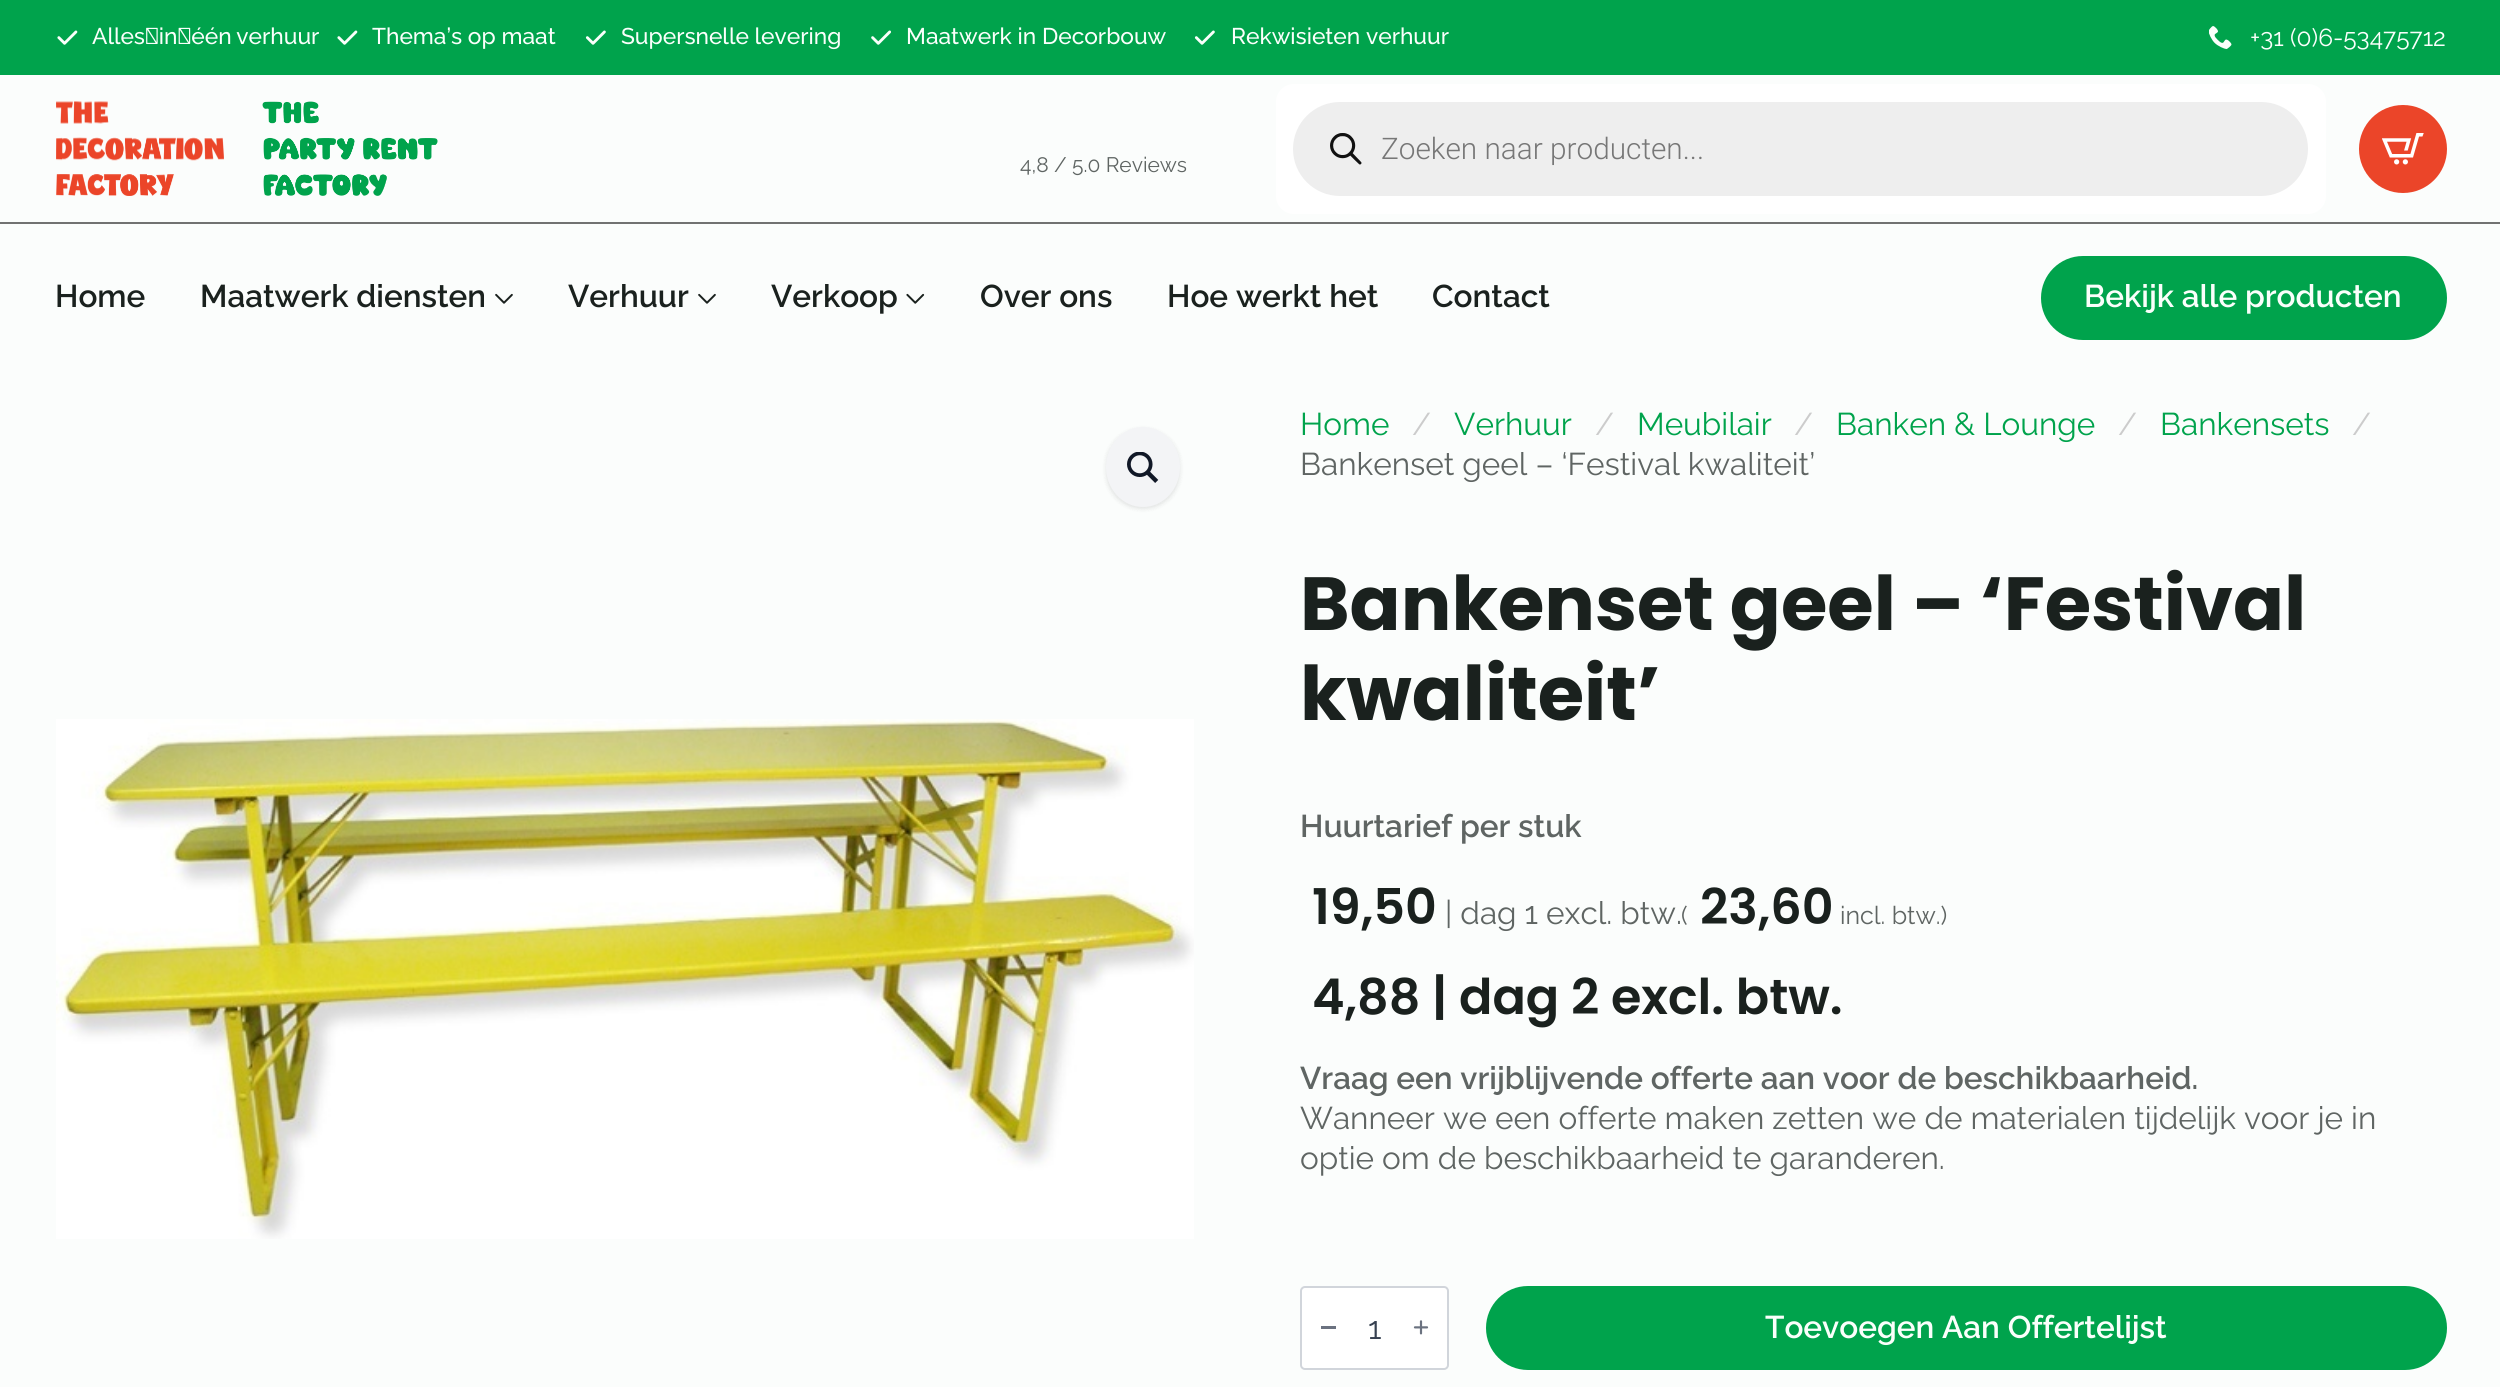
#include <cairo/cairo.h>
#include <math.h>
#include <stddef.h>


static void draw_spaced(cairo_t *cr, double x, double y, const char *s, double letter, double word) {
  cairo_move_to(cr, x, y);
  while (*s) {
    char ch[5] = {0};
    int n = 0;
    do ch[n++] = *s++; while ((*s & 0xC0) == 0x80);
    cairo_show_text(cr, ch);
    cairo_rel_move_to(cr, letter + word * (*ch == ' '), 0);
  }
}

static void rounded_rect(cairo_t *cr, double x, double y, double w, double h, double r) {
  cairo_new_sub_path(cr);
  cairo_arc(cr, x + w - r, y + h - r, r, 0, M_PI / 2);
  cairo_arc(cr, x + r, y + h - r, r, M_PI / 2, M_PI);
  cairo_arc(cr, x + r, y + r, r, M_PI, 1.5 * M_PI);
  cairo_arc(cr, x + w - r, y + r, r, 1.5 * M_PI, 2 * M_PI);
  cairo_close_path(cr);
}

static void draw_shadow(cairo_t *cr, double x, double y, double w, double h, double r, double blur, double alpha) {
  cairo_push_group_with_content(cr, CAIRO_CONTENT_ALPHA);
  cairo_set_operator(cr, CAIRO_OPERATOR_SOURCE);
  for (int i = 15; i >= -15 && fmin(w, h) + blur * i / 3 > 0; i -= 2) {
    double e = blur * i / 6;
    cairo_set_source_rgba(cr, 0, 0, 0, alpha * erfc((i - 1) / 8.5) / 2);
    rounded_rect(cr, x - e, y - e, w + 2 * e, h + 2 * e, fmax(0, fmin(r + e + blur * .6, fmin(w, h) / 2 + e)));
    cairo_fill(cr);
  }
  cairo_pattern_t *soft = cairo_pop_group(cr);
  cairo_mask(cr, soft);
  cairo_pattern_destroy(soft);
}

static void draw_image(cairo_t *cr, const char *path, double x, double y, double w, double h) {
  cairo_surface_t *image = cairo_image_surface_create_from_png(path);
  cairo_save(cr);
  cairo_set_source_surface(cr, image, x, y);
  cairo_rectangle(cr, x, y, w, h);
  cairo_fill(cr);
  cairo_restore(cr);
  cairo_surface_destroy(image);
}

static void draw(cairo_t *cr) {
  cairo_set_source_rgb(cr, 251 / 255.0, 253 / 255.0, 252 / 255.0);
  cairo_paint(cr);
  cairo_set_source_rgb(cr, 0, 163 / 255.0, 76 / 255.0);
  cairo_rectangle(cr, 0, 0, 2500, 75);
  cairo_fill(cr);
  draw_image(cr, "images/1.png", 57, 30, 21, 15);
  draw_image(cr, "images/1.png", 337, 30, 21, 15);
  draw_image(cr, "images/2.png", 585, 30, 21, 15);
  draw_image(cr, "images/3.png", 871, 30, 20, 15);
  draw_image(cr, "images/2.png", 1194, 30, 21, 15);
  draw_image(cr, "images/4.png", 2209, 26, 23, 23);
  cairo_set_source_rgb(cr, 113 / 255.0, 114 / 255.0, 113 / 255.0);
  cairo_rectangle(cr, 0, 222, 2500, 2);
  cairo_fill(cr);
  draw_image(cr, "images/5.png", 56, 101, 168, 95);
  draw_image(cr, "images/6.png", 262, 101, 176, 95);
  cairo_set_source_rgb(cr, 1, 1, 1);
  rounded_rect(cr, 1276, 84, 1050, 130, 18);
  cairo_fill(cr);
  cairo_set_source_rgb(cr, 238 / 255.0, 238 / 255.0, 238 / 255.0);
  rounded_rect(cr, 1293, 102, 1015, 94, 47);
  cairo_fill(cr);
  draw_image(cr, "images/7.png", 1330, 133, 32, 32);
  cairo_set_source_rgb(cr, 235 / 255.0, 69 / 255.0, 41 / 255.0);
  cairo_arc(cr, 2403, 149, 44, 0, 2 * M_PI);
  cairo_fill(cr);
  draw_image(cr, "images/8.png", 2382, 133, 42, 32);
  draw_image(cr, "images/9.png", 495, 293, 18, 11);
  draw_image(cr, "images/9.png", 698, 293, 18, 11);
  draw_image(cr, "images/10.png", 906, 293, 19, 11);
  cairo_set_source_rgb(cr, 0, 163 / 255.0, 76 / 255.0);
  rounded_rect(cr, 2041, 256, 406, 84, 42);
  cairo_fill(cr);
  cairo_set_source_rgb(cr, 0, 0, 0);
  draw_shadow(cr, 1106, 429, 74, 80, 37, 2, 0.05);
  draw_shadow(cr, 1106, 429, 74, 80, 37, 2.5, 0.05);
  cairo_set_source_rgb(cr, 243 / 255.0, 244 / 255.0, 246 / 255.0);
  cairo_new_path(cr);
  cairo_move_to(cr, 1143, 427);
  cairo_curve_to(cr, 1163.5, 427, 1180, 445, 1180, 467);
  cairo_curve_to(cr, 1180, 489, 1163.5, 507, 1143, 507);
  cairo_curve_to(cr, 1122.5, 507, 1106, 489, 1106, 467);
  cairo_curve_to(cr, 1106, 445, 1122.5, 427, 1143, 427);
  cairo_close_path(cr);
  cairo_fill(cr);
  draw_image(cr, "images/11.png", 1127, 452, 32, 31);
  draw_image(cr, "images/12.png", 56, 719, 1138, 520);
  cairo_set_source_rgb(cr, 1, 1, 1);
  rounded_rect(cr, 1301, 1287, 147, 82, 4);
  cairo_fill_preserve(cr);
  cairo_set_source_rgb(cr, 209 / 255.0, 213 / 255.0, 219 / 255.0);
  cairo_stroke(cr);
  cairo_set_source_rgb(cr, 107 / 255.0, 114 / 255.0, 128 / 255.0);
  cairo_rectangle(cr, 1321, 1326, 15, 3);
  cairo_fill(cr);
  draw_image(cr, "images/13.png", 1413, 1320, 16, 15);
  cairo_set_source_rgb(cr, 0, 163 / 255.0, 76 / 255.0);
  rounded_rect(cr, 1486, 1286, 961, 84, 42);
  cairo_fill(cr);
  cairo_select_font_face(cr, "Raleway Medium", CAIRO_FONT_SLANT_NORMAL, CAIRO_FONT_WEIGHT_NORMAL);
  cairo_set_font_size(cr, 22.75);
  cairo_set_source_rgb(cr, 250 / 255.0, 1, 251 / 255.0);
  draw_spaced(cr, 92, 44, "Alles‑in‑één verhuur", 0, -1);
  cairo_move_to(cr, 372, 44);
  cairo_show_text(cr, "Thema’s op maat");
  cairo_move_to(cr, 621, 44);
  cairo_show_text(cr, "Supersnelle levering");
  cairo_move_to(cr, 906, 44);
  cairo_show_text(cr, "Maatwerk in Decorbouw");
  cairo_move_to(cr, 1231, 44);
  cairo_show_text(cr, "Rekwisieten verhuur");
  cairo_select_font_face(cr, "Raleway", CAIRO_FONT_SLANT_NORMAL, CAIRO_FONT_WEIGHT_NORMAL);
  cairo_set_font_size(cr, 24.5);
  cairo_move_to(cr, 2250, 46);
  cairo_show_text(cr, "+31 (0)6-53475712");
  cairo_set_font_size(cr, 21);
  cairo_set_source_rgb(cr, 95 / 255.0, 101 / 255.0, 99 / 255.0);
  cairo_move_to(cr, 1020, 172);
  cairo_show_text(cr, "4,8 / 5.0 Reviews");
  cairo_select_font_face(cr, "Roboto Light", CAIRO_FONT_SLANT_NORMAL, CAIRO_FONT_WEIGHT_NORMAL);
  cairo_set_font_size(cr, 29.75);
  cairo_set_source_rgb(cr, 119 / 255.0, 119 / 255.0, 119 / 255.0);
  cairo_move_to(cr, 1381, 159);
  cairo_show_text(cr, "Zoeken naar producten...");
  cairo_select_font_face(cr, "Raleway SemiBold", CAIRO_FONT_SLANT_NORMAL, CAIRO_FONT_WEIGHT_NORMAL);
  cairo_set_font_size(cr, 31.5);
  cairo_set_source_rgb(cr, 26 / 255.0, 33 / 255.0, 30 / 255.0);
  cairo_move_to(cr, 55, 307);
  cairo_show_text(cr, "Home");
  cairo_move_to(cr, 200, 307);
  cairo_show_text(cr, "Maatwerk diensten");
  cairo_move_to(cr, 568, 307);
  cairo_show_text(cr, "Verhuur");
  cairo_move_to(cr, 771, 307);
  cairo_show_text(cr, "Verkoop");
  cairo_move_to(cr, 980, 307);
  cairo_show_text(cr, "Over ons");
  cairo_move_to(cr, 1167, 307);
  cairo_show_text(cr, "Hoe werkt het");
  cairo_move_to(cr, 1432, 307);
  cairo_show_text(cr, "Contact");
  cairo_set_source_rgb(cr, 250 / 255.0, 1, 251 / 255.0);
  cairo_move_to(cr, 2084, 307);
  cairo_show_text(cr, "Bekijk alle producten");
  cairo_select_font_face(cr, "Raleway", CAIRO_FONT_SLANT_NORMAL, CAIRO_FONT_WEIGHT_NORMAL);
  cairo_set_source_rgb(cr, 0, 163 / 255.0, 76 / 255.0);
  cairo_move_to(cr, 1300, 435);
  cairo_show_text(cr, "Home");
  cairo_set_source_rgb(cr, 204 / 255.0, 204 / 255.0, 204 / 255.0);
  cairo_move_to(cr, 1412, 435);
  cairo_show_text(cr, "/");
  cairo_set_source_rgb(cr, 0, 163 / 255.0, 76 / 255.0);
  cairo_move_to(cr, 1454, 435);
  cairo_show_text(cr, "Verhuur");
  cairo_set_source_rgb(cr, 204 / 255.0, 204 / 255.0, 204 / 255.0);
  cairo_move_to(cr, 1595, 435);
  cairo_show_text(cr, "/");
  cairo_set_source_rgb(cr, 0, 163 / 255.0, 76 / 255.0);
  cairo_move_to(cr, 1637, 435);
  cairo_show_text(cr, "Meubilair");
  cairo_set_source_rgb(cr, 204 / 255.0, 204 / 255.0, 204 / 255.0);
  cairo_move_to(cr, 1794, 435);
  cairo_show_text(cr, "/");
  cairo_set_source_rgb(cr, 0, 163 / 255.0, 76 / 255.0);
  cairo_move_to(cr, 1836, 435);
  cairo_show_text(cr, "Banken & Lounge");
  cairo_set_source_rgb(cr, 204 / 255.0, 204 / 255.0, 204 / 255.0);
  cairo_move_to(cr, 2118, 435);
  cairo_show_text(cr, "/");
  cairo_set_source_rgb(cr, 0, 163 / 255.0, 76 / 255.0);
  cairo_move_to(cr, 2160, 435);
  cairo_show_text(cr, "Bankensets");
  cairo_set_source_rgb(cr, 204 / 255.0, 204 / 255.0, 204 / 255.0);
  cairo_move_to(cr, 2352, 435);
  cairo_show_text(cr, "/");
  cairo_set_source_rgb(cr, 95 / 255.0, 101 / 255.0, 99 / 255.0);
  cairo_move_to(cr, 1300, 475);
  cairo_show_text(cr, "Bankenset geel – ‘Festival kwaliteit’");
  cairo_select_font_face(cr, "Poppins", CAIRO_FONT_SLANT_NORMAL, CAIRO_FONT_WEIGHT_BOLD);
  cairo_set_font_size(cr, 75.25);
  cairo_set_source_rgb(cr, 26 / 255.0, 33 / 255.0, 30 / 255.0);
  cairo_move_to(cr, 1300, 630);
  cairo_show_text(cr, "Bankenset geel – ‘Festival");
  cairo_move_to(cr, 1300, 720);
  cairo_show_text(cr, "kwaliteit’");
  cairo_select_font_face(cr, "Raleway SemiBold", CAIRO_FONT_SLANT_NORMAL, CAIRO_FONT_WEIGHT_NORMAL);
  cairo_set_font_size(cr, 31.5);
  cairo_set_source_rgb(cr, 95 / 255.0, 101 / 255.0, 99 / 255.0);
  cairo_move_to(cr, 1300, 837);
  cairo_show_text(cr, "Huurtarief per stuk");
  cairo_select_font_face(cr, "Poppins SemiBold", CAIRO_FONT_SLANT_NORMAL, CAIRO_FONT_WEIGHT_NORMAL);
  cairo_set_font_size(cr, 49.25);
  cairo_set_source_rgb(cr, 26 / 255.0, 33 / 255.0, 30 / 255.0);
  cairo_move_to(cr, 1312, 924);
  cairo_show_text(cr, "19,50");
  cairo_select_font_face(cr, "Raleway", CAIRO_FONT_SLANT_NORMAL, CAIRO_FONT_WEIGHT_NORMAL);
  cairo_set_font_size(cr, 31.5);
  cairo_set_source_rgb(cr, 95 / 255.0, 101 / 255.0, 99 / 255.0);
  cairo_move_to(cr, 1445, 924);
  cairo_show_text(cr, "| dag 1 excl. btw.");
  cairo_set_font_size(cr, 25);
  cairo_move_to(cr, 1681, 924);
  cairo_show_text(cr, "(");
  cairo_select_font_face(cr, "Poppins SemiBold", CAIRO_FONT_SLANT_NORMAL, CAIRO_FONT_WEIGHT_NORMAL);
  cairo_set_font_size(cr, 49.25);
  cairo_set_source_rgb(cr, 26 / 255.0, 33 / 255.0, 30 / 255.0);
  cairo_move_to(cr, 1700, 924);
  cairo_show_text(cr, "23,60");
  cairo_select_font_face(cr, "Raleway", CAIRO_FONT_SLANT_NORMAL, CAIRO_FONT_WEIGHT_NORMAL);
  cairo_set_font_size(cr, 25);
  cairo_set_source_rgb(cr, 95 / 255.0, 101 / 255.0, 99 / 255.0);
  cairo_move_to(cr, 1840, 924);
  cairo_show_text(cr, "incl. btw.)");
  cairo_select_font_face(cr, "Poppins SemiBold", CAIRO_FONT_SLANT_NORMAL, CAIRO_FONT_WEIGHT_NORMAL);
  cairo_set_font_size(cr, 49.25);
  cairo_set_source_rgb(cr, 26 / 255.0, 33 / 255.0, 30 / 255.0);
  cairo_move_to(cr, 1312, 1014);
  cairo_show_text(cr, "4,88 | dag 2 excl. btw.");
  cairo_select_font_face(cr, "Raleway SemiBold", CAIRO_FONT_SLANT_NORMAL, CAIRO_FONT_WEIGHT_NORMAL);
  cairo_set_font_size(cr, 31.5);
  cairo_set_source_rgb(cr, 95 / 255.0, 101 / 255.0, 99 / 255.0);
  cairo_move_to(cr, 1300, 1089);
  cairo_show_text(cr, "Vraag een vrijblijvende offerte aan voor de beschikbaarheid.");
  cairo_select_font_face(cr, "Raleway", CAIRO_FONT_SLANT_NORMAL, CAIRO_FONT_WEIGHT_NORMAL);
  cairo_move_to(cr, 1300, 1129);
  cairo_show_text(cr, "Wanneer we een offerte maken zetten we de materialen tijdelijk voor je in");
  cairo_move_to(cr, 1300, 1169);
  cairo_show_text(cr, "optie om de beschikbaarheid te garanderen.");
  cairo_set_source_rgb(cr, 55 / 255.0, 65 / 255.0, 81 / 255.0);
  cairo_move_to(cr, 1368, 1339);
  cairo_show_text(cr, "1");
  cairo_select_font_face(cr, "Raleway SemiBold", CAIRO_FONT_SLANT_NORMAL, CAIRO_FONT_WEIGHT_NORMAL);
  cairo_set_source_rgb(cr, 250 / 255.0, 1, 251 / 255.0);
  cairo_move_to(cr, 1765, 1338);
  cairo_show_text(cr, "Toevoegen Aan Offertelijst");
}

int main(void) {
  cairo_surface_t *surface = cairo_image_surface_create(CAIRO_FORMAT_RGB24, 2500, 1387);
  cairo_t *cr = cairo_create(surface);
  cairo_font_options_t *options = cairo_font_options_create();
  cairo_font_options_set_hint_metrics(options, CAIRO_HINT_METRICS_OFF);
  cairo_font_options_set_hint_style(options, CAIRO_HINT_STYLE_NONE);
  cairo_set_font_options(cr, options);
  cairo_set_miter_limit(cr, 4);
  draw(cr);
  cairo_surface_write_to_png(surface, "out.png");
  cairo_font_options_destroy(options);
  cairo_destroy(cr);
  cairo_surface_destroy(surface);
  return 0;
}
